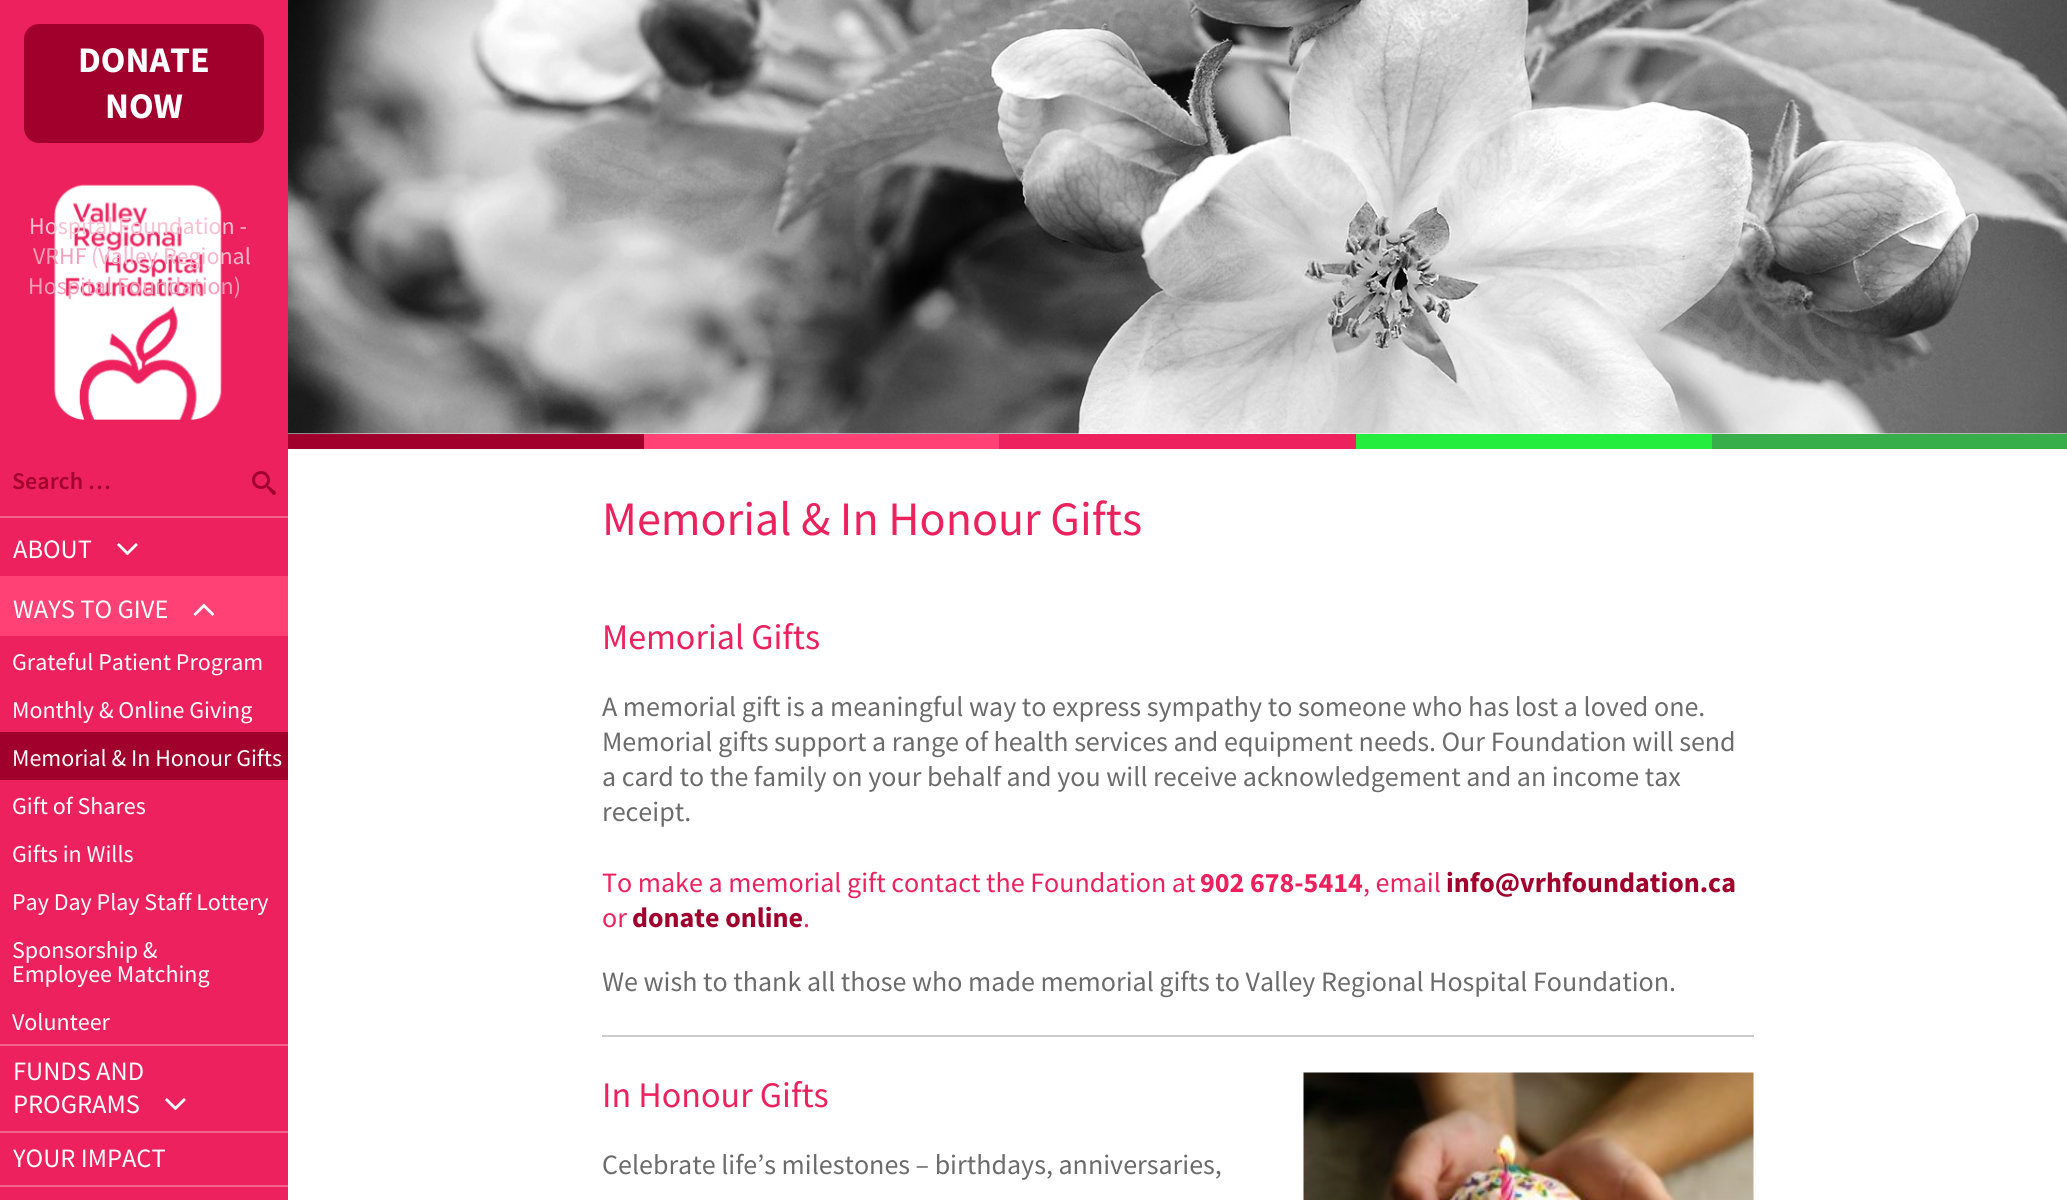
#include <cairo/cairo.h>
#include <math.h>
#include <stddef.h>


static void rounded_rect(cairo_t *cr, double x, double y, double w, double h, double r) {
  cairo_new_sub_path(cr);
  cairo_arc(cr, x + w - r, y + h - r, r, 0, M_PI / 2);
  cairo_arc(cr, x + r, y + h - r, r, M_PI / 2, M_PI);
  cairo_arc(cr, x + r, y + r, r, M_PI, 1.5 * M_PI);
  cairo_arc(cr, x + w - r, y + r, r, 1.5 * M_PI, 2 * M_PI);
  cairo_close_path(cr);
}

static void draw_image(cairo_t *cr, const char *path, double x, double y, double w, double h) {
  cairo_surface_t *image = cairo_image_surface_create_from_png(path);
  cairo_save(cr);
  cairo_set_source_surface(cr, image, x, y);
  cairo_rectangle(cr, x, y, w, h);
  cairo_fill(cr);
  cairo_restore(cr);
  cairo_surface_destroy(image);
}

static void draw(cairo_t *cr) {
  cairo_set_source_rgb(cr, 1, 1, 1);
  cairo_paint(cr);
  cairo_set_source_rgb(cr, 237 / 255.0, 33 / 255.0, 93 / 255.0);
  cairo_rectangle(cr, 0, 0, 288, 1131);
  cairo_fill(cr);
  cairo_set_source_rgb(cr, 161 / 255.0, 0, 44 / 255.0);
  rounded_rect(cr, 25, 25, 238, 117, 14);
  cairo_fill_preserve(cr);
  cairo_stroke(cr);
  draw_image(cr, "images/1.png", 54, 184, 168, 236);
  draw_image(cr, "images/2.png", 252, 471, 24, 24);
  cairo_set_source_rgb(cr, 242 / 255.0, 100 / 255.0, 142 / 255.0);
  cairo_rectangle(cr, 0, 516, 288, 2);
  cairo_fill(cr);
  draw_image(cr, "images/3.png", 117, 543, 21, 13);
  cairo_set_source_rgb(cr, 1, 65 / 255.0, 117 / 255.0);
  cairo_rectangle(cr, 0, 576, 288, 60);
  cairo_fill(cr);
  draw_image(cr, "images/4.png", 193, 603, 22, 13);
  cairo_set_source_rgb(cr, 161 / 255.0, 0, 44 / 255.0);
  cairo_rectangle(cr, 0, 732, 288, 48);
  cairo_fill(cr);
  cairo_set_source_rgb(cr, 242 / 255.0, 100 / 255.0, 142 / 255.0);
  cairo_rectangle(cr, 0, 1044, 288, 2);
  cairo_fill(cr);
  draw_image(cr, "images/3.png", 165, 1098, 21, 13);
  cairo_set_source_rgb(cr, 237 / 255.0, 33 / 255.0, 93 / 255.0);
  cairo_rectangle(cr, 0, 1133, 288, 52);
  cairo_fill(cr);
  cairo_set_source_rgb(cr, 242 / 255.0, 100 / 255.0, 142 / 255.0);
  cairo_rectangle(cr, 0, 1131, 288, 2);
  cairo_fill(cr);
  cairo_set_source_rgb(cr, 237 / 255.0, 33 / 255.0, 93 / 255.0);
  cairo_rectangle(cr, 0, 1187, 288, 13);
  cairo_fill(cr);
  cairo_set_source_rgb(cr, 242 / 255.0, 100 / 255.0, 142 / 255.0);
  cairo_rectangle(cr, 0, 1185, 288, 2);
  cairo_fill(cr);
  draw_image(cr, "images/5.png", 288, 0, 1779, 434);
  cairo_set_source_rgb(cr, 161 / 255.0, 0, 44 / 255.0);
  cairo_rectangle(cr, 288, 434, 356, 15);
  cairo_fill(cr);
  cairo_set_source_rgb(cr, 1, 65 / 255.0, 117 / 255.0);
  cairo_rectangle(cr, 644, 434, 355, 15);
  cairo_fill(cr);
  cairo_set_source_rgb(cr, 237 / 255.0, 33 / 255.0, 93 / 255.0);
  cairo_rectangle(cr, 999, 434, 357, 15);
  cairo_fill(cr);
  cairo_set_source_rgb(cr, 37 / 255.0, 237 / 255.0, 62 / 255.0);
  cairo_rectangle(cr, 1356, 434, 356, 15);
  cairo_fill(cr);
  cairo_set_source_rgb(cr, 55 / 255.0, 174 / 255.0, 73 / 255.0);
  cairo_rectangle(cr, 1712, 434, 355, 15);
  cairo_fill(cr);
  cairo_set_source_rgb(cr, 204 / 255.0, 204 / 255.0, 204 / 255.0);
  cairo_rectangle(cr, 602, 1035, 1152, 2);
  cairo_fill(cr);
  draw_image(cr, "images/6.png", 1303, 1072, 451, 128);
  cairo_select_font_face(cr, "Source Sans Pro", CAIRO_FONT_SLANT_NORMAL, CAIRO_FONT_WEIGHT_BOLD);
  cairo_set_font_size(cr, 36);
  cairo_set_source_rgb(cr, 1, 1, 1);
  cairo_move_to(cr, 78, 72);
  cairo_show_text(cr, "DONATE");
  cairo_move_to(cr, 105, 118);
  cairo_show_text(cr, "NOW");
  cairo_select_font_face(cr, "Source Sans Pro", CAIRO_FONT_SLANT_NORMAL, CAIRO_FONT_WEIGHT_NORMAL);
  cairo_set_font_size(cr, 24);
  cairo_set_source_rgb(cr, 250 / 255.0, 191 / 255.0, 208 / 255.0);
  cairo_move_to(cr, 29, 234);
  cairo_show_text(cr, "Hospital Foundation -");
  cairo_set_source_rgb(cr, 247 / 255.0, 158 / 255.0, 184 / 255.0);
  cairo_move_to(cr, 33, 264);
  cairo_show_text(cr, "VRHF");
  cairo_set_source_rgb(cr, 249 / 255.0, 181 / 255.0, 201 / 255.0);
  cairo_move_to(cr, 91, 264);
  cairo_show_text(cr, "(Valley Regional");
  cairo_set_source_rgb(cr, 247 / 255.0, 158 / 255.0, 184 / 255.0);
  cairo_move_to(cr, 28, 294);
  cairo_show_text(cr, "Hospital Foundation)");
  cairo_select_font_face(cr, "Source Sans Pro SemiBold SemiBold", CAIRO_FONT_SLANT_NORMAL, CAIRO_FONT_WEIGHT_NORMAL);
  cairo_set_source_rgb(cr, 161 / 255.0, 0, 44 / 255.0);
  cairo_move_to(cr, 12, 489);
  cairo_show_text(cr, "Search …");
  cairo_select_font_face(cr, "Source Sans Pro", CAIRO_FONT_SLANT_NORMAL, CAIRO_FONT_WEIGHT_NORMAL);
  cairo_set_font_size(cr, 26.5);
  cairo_set_source_rgb(cr, 1, 1, 1);
  cairo_move_to(cr, 13, 558);
  cairo_show_text(cr, "ABOUT");
  cairo_move_to(cr, 13, 618);
  cairo_show_text(cr, "WAYS TO GIVE");
  cairo_set_font_size(cr, 24);
  cairo_move_to(cr, 12, 670);
  cairo_show_text(cr, "Grateful Patient Program");
  cairo_move_to(cr, 12, 718);
  cairo_show_text(cr, "Monthly & Online Giving");
  cairo_move_to(cr, 12, 766);
  cairo_show_text(cr, "Memorial & In Honour Gifts");
  cairo_move_to(cr, 12, 814);
  cairo_show_text(cr, "Gift of Shares");
  cairo_move_to(cr, 12, 862);
  cairo_show_text(cr, "Gifts in Wills");
  cairo_move_to(cr, 12, 910);
  cairo_show_text(cr, "Pay Day Play Staff Lottery");
  cairo_move_to(cr, 12, 958);
  cairo_show_text(cr, "Sponsorship &");
  cairo_move_to(cr, 12, 982);
  cairo_show_text(cr, "Employee Matching");
  cairo_move_to(cr, 12, 1030);
  cairo_show_text(cr, "Volunteer");
  cairo_set_font_size(cr, 26.5);
  cairo_move_to(cr, 13, 1080);
  cairo_show_text(cr, "FUNDS AND");
  cairo_move_to(cr, 13, 1113);
  cairo_show_text(cr, "PROGRAMS");
  cairo_move_to(cr, 13, 1167);
  cairo_show_text(cr, "YOUR IMPACT");
  cairo_set_font_size(cr, 48);
  cairo_set_source_rgb(cr, 237 / 255.0, 33 / 255.0, 93 / 255.0);
  cairo_move_to(cr, 602, 535);
  cairo_show_text(cr, "Memorial & In Honour Gifts");
  cairo_set_font_size(cr, 36);
  cairo_move_to(cr, 602, 649);
  cairo_show_text(cr, "Memorial Gifts");
  cairo_set_font_size(cr, 28);
  cairo_set_source_rgb(cr, 107 / 255.0, 107 / 255.0, 107 / 255.0);
  cairo_move_to(cr, 602, 716);
  cairo_show_text(cr, "A memorial gift is a meaningful way to express sympathy to someone who has lost a loved one.");
  cairo_move_to(cr, 602, 751);
  cairo_show_text(cr, "Memorial gifts support a range of health services and equipment needs. Our Foundation will send");
  cairo_move_to(cr, 602, 786);
  cairo_show_text(cr, "a card to the family on your behalf and you will receive acknowledgement and an income tax");
  cairo_move_to(cr, 602, 821);
  cairo_show_text(cr, "receipt.");
  cairo_set_source_rgb(cr, 237 / 255.0, 33 / 255.0, 93 / 255.0);
  cairo_move_to(cr, 602, 892);
  cairo_show_text(cr, "To make a memorial gift contact the Foundation at");
  cairo_select_font_face(cr, "Source Sans Pro", CAIRO_FONT_SLANT_NORMAL, CAIRO_FONT_WEIGHT_BOLD);
  cairo_move_to(cr, 1200, 892);
  cairo_show_text(cr, "902 678-5414");
  cairo_select_font_face(cr, "Source Sans Pro", CAIRO_FONT_SLANT_NORMAL, CAIRO_FONT_WEIGHT_NORMAL);
  cairo_move_to(cr, 1363, 892);
  cairo_show_text(cr, ", email");
  cairo_select_font_face(cr, "Source Sans Pro", CAIRO_FONT_SLANT_NORMAL, CAIRO_FONT_WEIGHT_BOLD);
  cairo_set_source_rgb(cr, 161 / 255.0, 0, 44 / 255.0);
  cairo_move_to(cr, 1446, 892);
  cairo_show_text(cr, "info@vrhfoundation.ca");
  cairo_select_font_face(cr, "Source Sans Pro", CAIRO_FONT_SLANT_NORMAL, CAIRO_FONT_WEIGHT_NORMAL);
  cairo_set_source_rgb(cr, 237 / 255.0, 33 / 255.0, 93 / 255.0);
  cairo_move_to(cr, 602, 927);
  cairo_show_text(cr, "or");
  cairo_select_font_face(cr, "Source Sans Pro", CAIRO_FONT_SLANT_NORMAL, CAIRO_FONT_WEIGHT_BOLD);
  cairo_set_source_rgb(cr, 161 / 255.0, 0, 44 / 255.0);
  cairo_move_to(cr, 632, 927);
  cairo_show_text(cr, "donate online");
  cairo_select_font_face(cr, "Source Sans Pro", CAIRO_FONT_SLANT_NORMAL, CAIRO_FONT_WEIGHT_NORMAL);
  cairo_set_source_rgb(cr, 237 / 255.0, 33 / 255.0, 93 / 255.0);
  cairo_move_to(cr, 803, 927);
  cairo_show_text(cr, ".");
  cairo_set_source_rgb(cr, 107 / 255.0, 107 / 255.0, 107 / 255.0);
  cairo_move_to(cr, 602, 991);
  cairo_show_text(cr, "We wish to thank all those who made memorial gifts to Valley Regional Hospital Foundation.");
  cairo_set_font_size(cr, 36);
  cairo_set_source_rgb(cr, 237 / 255.0, 33 / 255.0, 93 / 255.0);
  cairo_move_to(cr, 602, 1107);
  cairo_show_text(cr, "In Honour Gifts");
  cairo_set_font_size(cr, 28);
  cairo_set_source_rgb(cr, 107 / 255.0, 107 / 255.0, 107 / 255.0);
  cairo_move_to(cr, 602, 1174);
  cairo_show_text(cr, "Celebrate life’s milestones – birthdays, anniversaries,");
}

int main(void) {
  cairo_surface_t *surface = cairo_image_surface_create(CAIRO_FORMAT_RGB24, 2067, 1200);
  cairo_t *cr = cairo_create(surface);
  cairo_font_options_t *options = cairo_font_options_create();
  cairo_font_options_set_hint_metrics(options, CAIRO_HINT_METRICS_OFF);
  cairo_font_options_set_hint_style(options, CAIRO_HINT_STYLE_NONE);
  cairo_set_font_options(cr, options);
  cairo_set_miter_limit(cr, 4);
  draw(cr);
  cairo_surface_write_to_png(surface, "out.png");
  cairo_font_options_destroy(options);
  cairo_destroy(cr);
  cairo_surface_destroy(surface);
  return 0;
}
